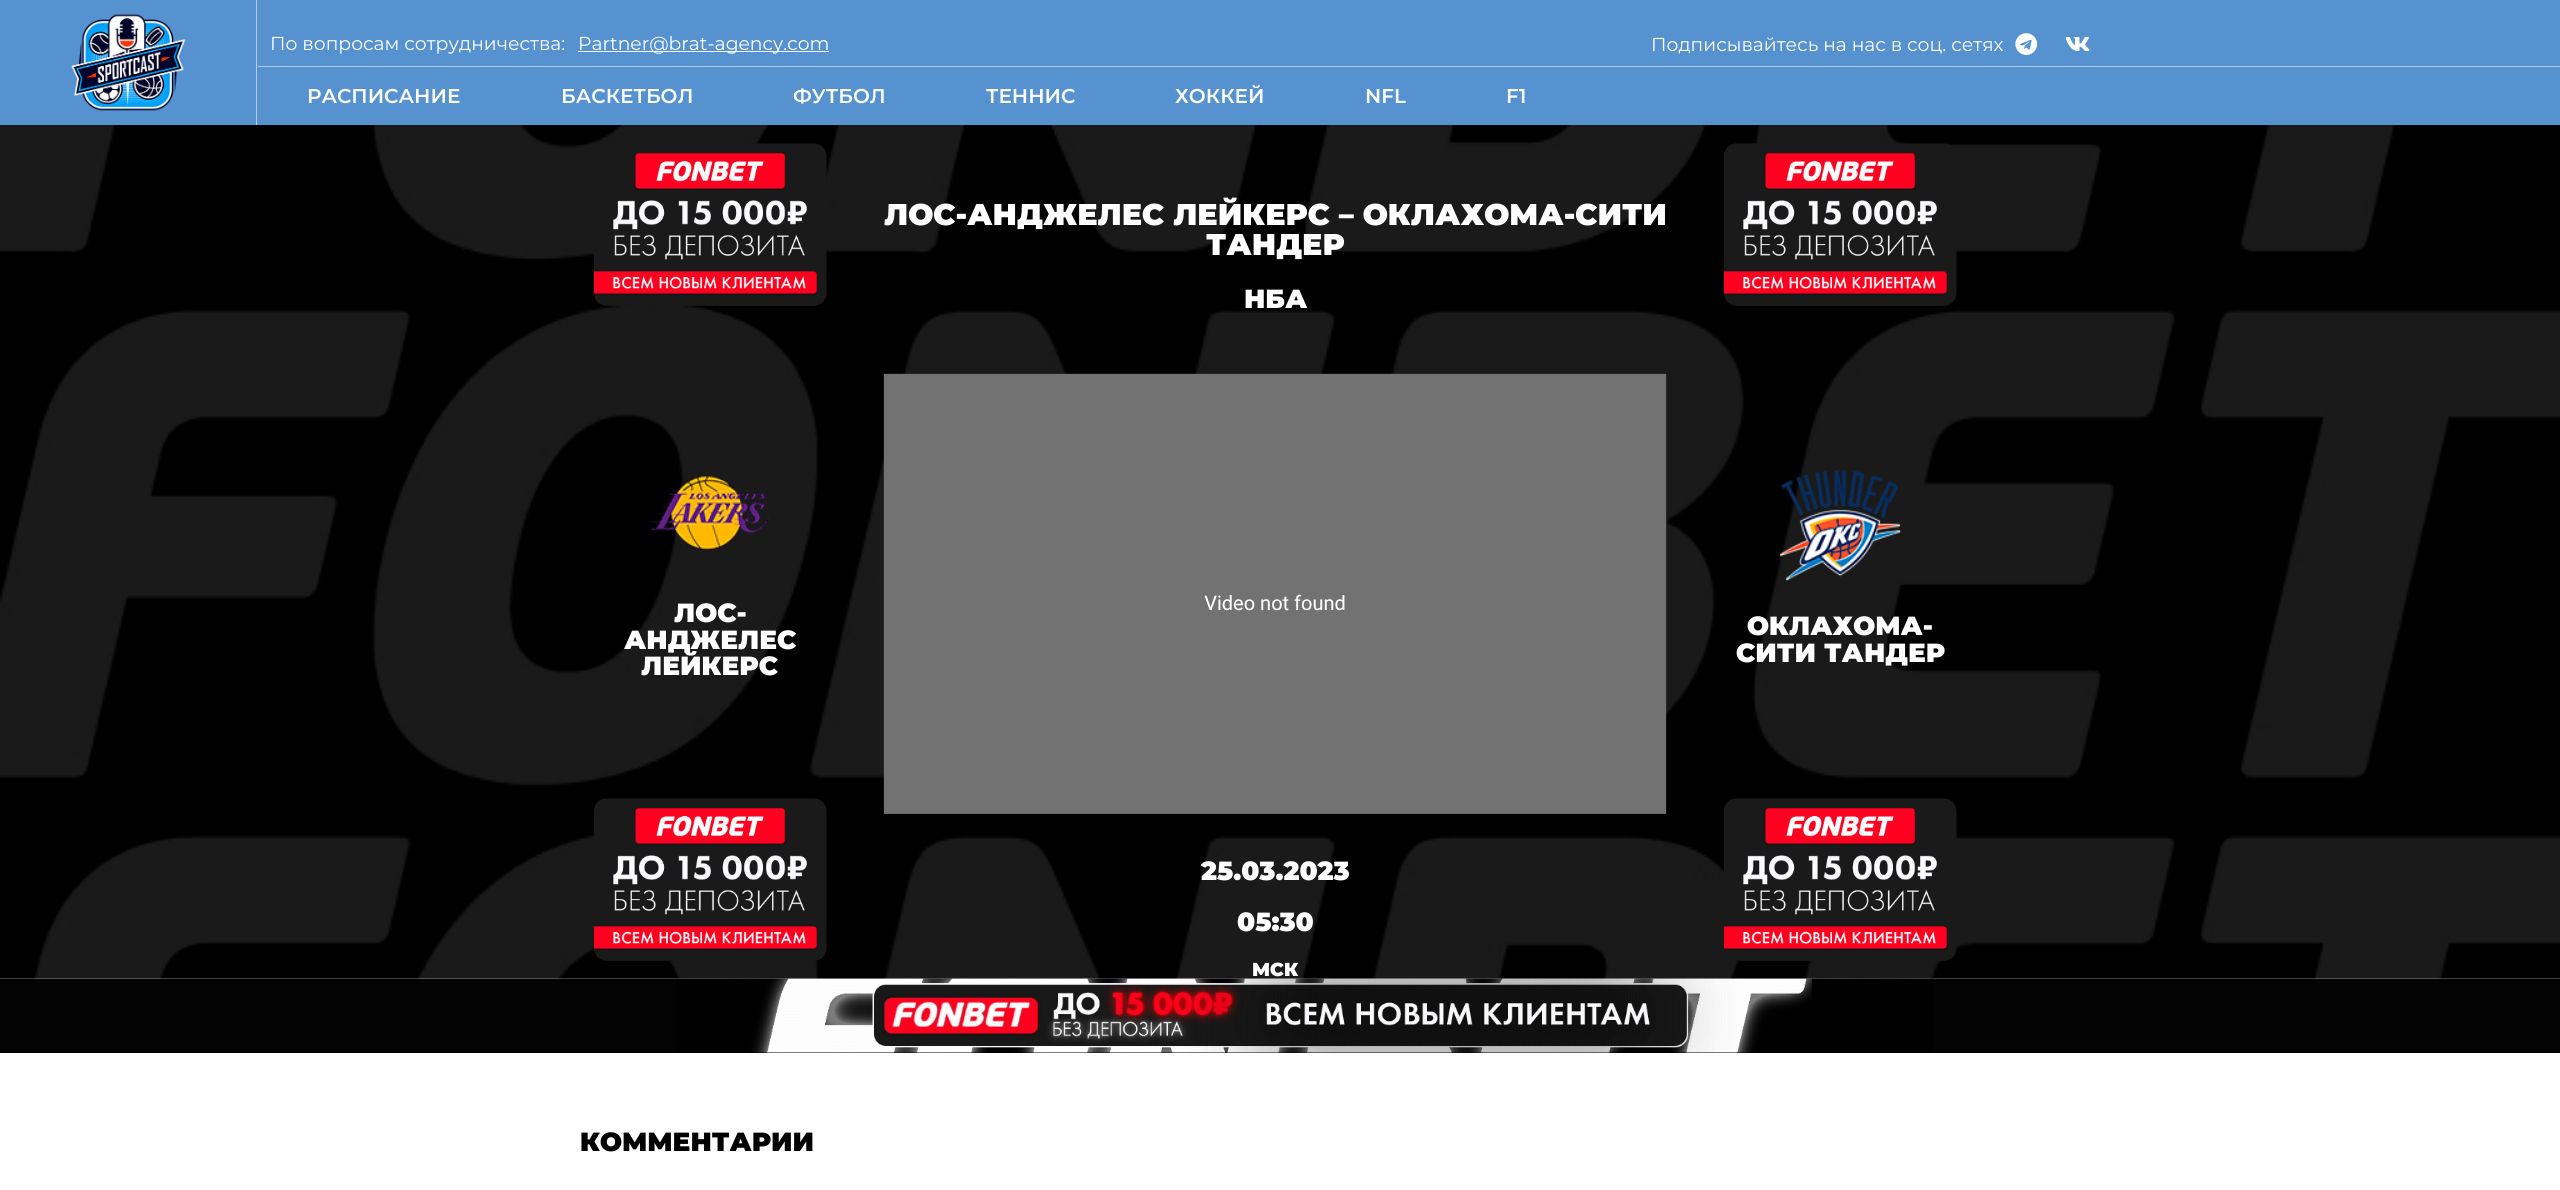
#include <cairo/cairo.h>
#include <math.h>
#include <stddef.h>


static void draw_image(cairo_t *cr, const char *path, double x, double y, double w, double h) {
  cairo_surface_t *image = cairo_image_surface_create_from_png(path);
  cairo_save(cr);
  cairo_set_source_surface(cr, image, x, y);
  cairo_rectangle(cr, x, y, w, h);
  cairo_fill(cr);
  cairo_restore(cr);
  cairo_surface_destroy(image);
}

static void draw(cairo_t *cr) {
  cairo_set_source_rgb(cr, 1, 1, 1);
  cairo_paint(cr);
  cairo_set_source_rgb(cr, 85 / 255.0, 146 / 255.0, 207 / 255.0);
  cairo_rectangle(cr, 0, 0, 2560, 125);
  cairo_fill(cr);
  draw_image(cr, "images/1.png", 71, 14, 115, 97);
  cairo_set_source_rgb(cr, 177 / 255.0, 205 / 255.0, 233 / 255.0);
  cairo_rectangle(cr, 256, 0, 1, 125);
  cairo_fill(cr);
  cairo_rectangle(cr, 258, 66, 2302, 1);
  cairo_fill(cr);
  cairo_set_source_rgb(cr, 1, 1, 1);
  cairo_rectangle(cr, 578, 51, 251, 1);
  cairo_fill(cr);
  draw_image(cr, "images/2.png", 2015, 33, 23, 22);
  draw_image(cr, "images/3.png", 2065, 37, 25, 15);
  draw_image(cr, "images/4.png", 0, 125, 2560, 854);
  draw_image(cr, "images/5.png", 594, 143, 233, 163);
  draw_image(cr, "images/6.png", 651, 476, 118, 74);
  draw_image(cr, "images/7.png", 594, 798, 233, 163);
  draw_image(cr, "images/8.png", 883, 373, 784, 441);
  draw_image(cr, "images/9.png", 1724, 143, 233, 163);
  draw_image(cr, "images/10.png", 1779, 470, 123, 111);
  draw_image(cr, "images/11.png", 1724, 798, 233, 163);
  cairo_set_source_rgb(cr, 3 / 255.0, 3 / 255.0, 3 / 255.0);
  cairo_rectangle(cr, 0, 979, 2560, 74);
  cairo_fill(cr);
  draw_image(cr, "images/12.png", 677, 978, 1256, 75);
  cairo_select_font_face(cr, "Montserrat", CAIRO_FONT_SLANT_NORMAL, CAIRO_FONT_WEIGHT_NORMAL);
  cairo_set_font_size(cr, 18.75);
  cairo_set_source_rgb(cr, 1, 1, 1);
  cairo_move_to(cr, 270, 50);
  cairo_show_text(cr, "По вопросам сотрудничества:");
  cairo_move_to(cr, 578, 50);
  cairo_show_text(cr, "Partner@brat-agency.com");
  cairo_move_to(cr, 1651, 51);
  cairo_show_text(cr, "Подписывайтесь на нас в соц. сетях");
  cairo_select_font_face(cr, "Montserrat SemiBold", CAIRO_FONT_SLANT_NORMAL, CAIRO_FONT_WEIGHT_NORMAL);
  cairo_set_font_size(cr, 20);
  cairo_move_to(cr, 307, 103);
  cairo_show_text(cr, "РАСПИСАНИЕ");
  cairo_move_to(cr, 561, 103);
  cairo_show_text(cr, "БАСКЕТБОЛ");
  cairo_move_to(cr, 793, 103);
  cairo_show_text(cr, "ФУТБОЛ");
  cairo_move_to(cr, 986, 103);
  cairo_show_text(cr, "ТЕННИС");
  cairo_move_to(cr, 1175, 103);
  cairo_show_text(cr, "ХОККЕЙ");
  cairo_move_to(cr, 1365, 103);
  cairo_show_text(cr, "NFL");
  cairo_move_to(cr, 1506, 103);
  cairo_show_text(cr, "F1");
  cairo_select_font_face(cr, "Montserrat Black", CAIRO_FONT_SLANT_NORMAL, CAIRO_FONT_WEIGHT_NORMAL);
  cairo_set_font_size(cr, 26.25);
  cairo_move_to(cr, 674, 622);
  cairo_show_text(cr, "ЛОС-");
  cairo_move_to(cr, 624, 649);
  cairo_show_text(cr, "АНДЖЕЛЕС");
  cairo_move_to(cr, 641, 675);
  cairo_show_text(cr, "ЛЕЙКЕРС");
  cairo_set_font_size(cr, 30);
  cairo_move_to(cr, 884, 225);
  cairo_show_text(cr, "ЛОС-АНДЖЕЛЕС ЛЕЙКЕРС – ОКЛАХОМА-СИТИ");
  cairo_move_to(cr, 1206, 255);
  cairo_show_text(cr, "ТАНДЕР");
  cairo_set_font_size(cr, 26.25);
  cairo_move_to(cr, 1244, 308);
  cairo_show_text(cr, "НБА");
  cairo_move_to(cr, 1201, 880);
  cairo_show_text(cr, "25.03.2023");
  cairo_move_to(cr, 1237, 931);
  cairo_show_text(cr, "05:30");
  cairo_set_font_size(cr, 18.75);
  cairo_move_to(cr, 1252, 976);
  cairo_show_text(cr, "МСК");
  cairo_set_font_size(cr, 26.25);
  cairo_move_to(cr, 1747, 635);
  cairo_show_text(cr, "ОКЛАХОМА-");
  cairo_move_to(cr, 1736, 662);
  cairo_show_text(cr, "СИТИ ТАНДЕР");
  cairo_set_source_rgb(cr, 0, 0, 0);
  cairo_move_to(cr, 580, 1151);
  cairo_show_text(cr, "КОММЕНТАРИИ");
}

int main(void) {
  cairo_surface_t *surface = cairo_image_surface_create(CAIRO_FORMAT_RGB24, 2560, 1190);
  cairo_t *cr = cairo_create(surface);
  cairo_font_options_t *options = cairo_font_options_create();
  cairo_font_options_set_hint_metrics(options, CAIRO_HINT_METRICS_OFF);
  cairo_font_options_set_hint_style(options, CAIRO_HINT_STYLE_NONE);
  cairo_set_font_options(cr, options);
  cairo_set_miter_limit(cr, 4);
  draw(cr);
  cairo_surface_write_to_png(surface, "out.png");
  cairo_font_options_destroy(options);
  cairo_destroy(cr);
  cairo_surface_destroy(surface);
  return 0;
}
